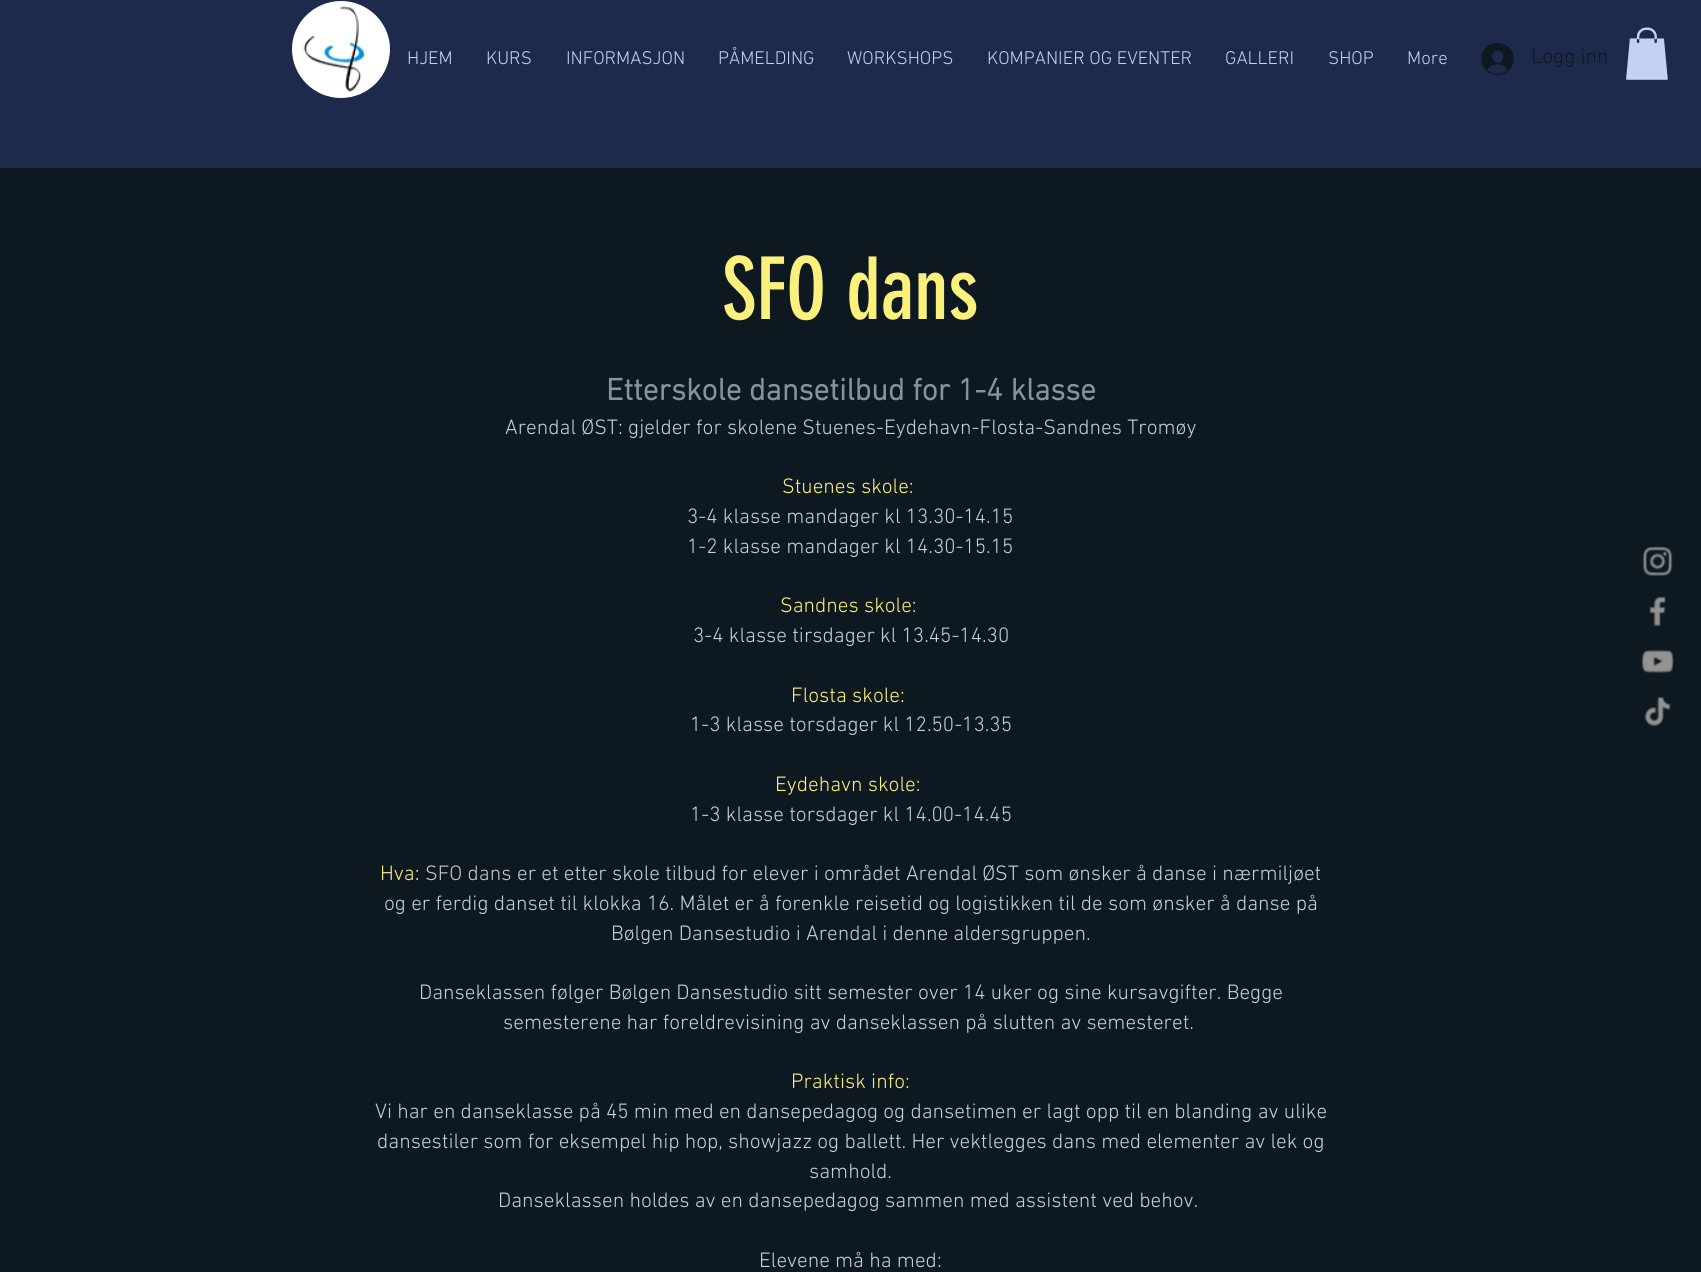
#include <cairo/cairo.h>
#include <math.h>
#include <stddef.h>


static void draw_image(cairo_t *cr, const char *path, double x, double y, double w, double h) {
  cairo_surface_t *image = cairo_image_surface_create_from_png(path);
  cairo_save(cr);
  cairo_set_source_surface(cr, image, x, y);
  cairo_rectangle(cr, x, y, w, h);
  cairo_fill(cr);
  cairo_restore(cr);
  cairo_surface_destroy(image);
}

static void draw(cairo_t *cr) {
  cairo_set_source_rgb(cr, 14 / 255.0, 24 / 255.0, 33 / 255.0);
  cairo_paint(cr);
  cairo_set_source_rgb(cr, 30 / 255.0, 42 / 255.0, 75 / 255.0);
  cairo_rectangle(cr, 0, 0, 1701, 168);
  cairo_fill(cr);
  cairo_set_source_rgb(cr, 1, 1, 1);
  cairo_new_path(cr);
  cairo_move_to(cr, 390, 49);
  cairo_curve_to(cr, 390, 76, 368, 98, 341, 98);
  cairo_curve_to(cr, 314, 98, 292, 76, 292, 49);
  cairo_curve_to(cr, 292, 23, 314, 1, 341, 1);
  cairo_curve_to(cr, 368, 1, 390, 23, 390, 49);
  cairo_close_path(cr);
  cairo_fill(cr);
  draw_image(cr, "images/1.png", 303, 6, 63, 87);
  draw_image(cr, "images/2.png", 1481, 43, 33, 32);
  draw_image(cr, "images/3.png", 1626, 27, 42, 53);
  draw_image(cr, "images/4.png", 1642, 546, 31, 31);
  draw_image(cr, "images/5.png", 1649, 596, 17, 31);
  draw_image(cr, "images/6.png", 1641, 649, 33, 25);
  draw_image(cr, "images/7.png", 1644, 696, 27, 31);
  cairo_select_font_face(cr, "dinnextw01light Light", CAIRO_FONT_SLANT_NORMAL, CAIRO_FONT_WEIGHT_NORMAL);
  cairo_set_font_size(cr, 18.75);
  cairo_set_source_rgb(cr, 196 / 255.0, 209 / 255.0, 245 / 255.0);
  cairo_move_to(cr, 407, 64);
  cairo_show_text(cr, "HJEM");
  cairo_move_to(cr, 486, 64);
  cairo_show_text(cr, "KURS");
  cairo_move_to(cr, 566, 64);
  cairo_show_text(cr, "INFORMASJON");
  cairo_move_to(cr, 718, 64);
  cairo_show_text(cr, "PÅMELDING");
  cairo_move_to(cr, 847, 64);
  cairo_show_text(cr, "WORKSHOPS");
  cairo_move_to(cr, 987, 64);
  cairo_show_text(cr, "KOMPANIER OG EVENTER");
  cairo_move_to(cr, 1225, 64);
  cairo_show_text(cr, "GALLERI");
  cairo_move_to(cr, 1328, 64);
  cairo_show_text(cr, "SHOP");
  cairo_move_to(cr, 1407, 64);
  cairo_show_text(cr, "More");
  cairo_set_font_size(cr, 21.25);
  cairo_set_source_rgb(cr, 14 / 255.0, 24 / 255.0, 33 / 255.0);
  cairo_move_to(cr, 1531, 63);
  cairo_show_text(cr, "Logg inn");
  cairo_select_font_face(cr, "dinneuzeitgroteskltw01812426", CAIRO_FONT_SLANT_NORMAL, CAIRO_FONT_WEIGHT_NORMAL);
  cairo_set_font_size(cr, 85);
  cairo_set_source_rgb(cr, 250 / 255.0, 241 / 255.0, 124 / 255.0);
  cairo_move_to(cr, 722, 319);
  cairo_show_text(cr, "SFO dans");
  cairo_select_font_face(cr, "dinnextw01light", CAIRO_FONT_SLANT_NORMAL, CAIRO_FONT_WEIGHT_BOLD);
  cairo_set_font_size(cr, 31.25);
  cairo_set_source_rgb(cr, 130 / 255.0, 147 / 255.0, 161 / 255.0);
  cairo_move_to(cr, 606, 400);
  cairo_show_text(cr, "Etterskole dansetilbud for 1-4 klasse");
  cairo_select_font_face(cr, "dinnextw01light Light", CAIRO_FONT_SLANT_NORMAL, CAIRO_FONT_WEIGHT_NORMAL);
  cairo_set_font_size(cr, 21.25);
  cairo_set_source_rgb(cr, 197 / 255.0, 208 / 255.0, 217 / 255.0);
  cairo_move_to(cr, 505, 434);
  cairo_show_text(cr, "Arendal ØST: gjelder for skolene Stuenes-Eydehavn-Flosta-Sandnes Tromøy");
  cairo_set_source_rgb(cr, 250 / 255.0, 241 / 255.0, 124 / 255.0);
  cairo_move_to(cr, 782, 493);
  cairo_show_text(cr, "Stuenes skole:");
  cairo_set_source_rgb(cr, 197 / 255.0, 208 / 255.0, 217 / 255.0);
  cairo_move_to(cr, 687, 523);
  cairo_show_text(cr, "3-4 klasse mandager kl 13.30-14.15");
  cairo_move_to(cr, 687, 553);
  cairo_show_text(cr, "1-2 klasse mandager kl 14.30-15.15");
  cairo_set_source_rgb(cr, 250 / 255.0, 241 / 255.0, 124 / 255.0);
  cairo_move_to(cr, 780, 612);
  cairo_show_text(cr, "Sandnes skole:");
  cairo_set_source_rgb(cr, 197 / 255.0, 208 / 255.0, 217 / 255.0);
  cairo_move_to(cr, 693, 642);
  cairo_show_text(cr, "3-4 klasse tirsdager kl 13.45-14.30");
  cairo_set_source_rgb(cr, 250 / 255.0, 241 / 255.0, 124 / 255.0);
  cairo_move_to(cr, 791, 702);
  cairo_show_text(cr, "Flosta skole:");
  cairo_set_source_rgb(cr, 197 / 255.0, 208 / 255.0, 217 / 255.0);
  cairo_move_to(cr, 690, 731);
  cairo_show_text(cr, "1-3 klasse torsdager kl 12.50-13.35");
  cairo_set_source_rgb(cr, 250 / 255.0, 241 / 255.0, 124 / 255.0);
  cairo_move_to(cr, 775, 791);
  cairo_show_text(cr, "Eydehavn skole:");
  cairo_set_source_rgb(cr, 197 / 255.0, 208 / 255.0, 217 / 255.0);
  cairo_move_to(cr, 690, 821);
  cairo_show_text(cr, "1-3 klasse torsdager kl 14.00-14.45");
  cairo_set_source_rgb(cr, 250 / 255.0, 241 / 255.0, 124 / 255.0);
  cairo_move_to(cr, 380, 880);
  cairo_show_text(cr, "Hva:");
  cairo_set_source_rgb(cr, 199 / 255.0, 199 / 255.0, 199 / 255.0);
  cairo_move_to(cr, 425, 880);
  cairo_show_text(cr, "SFO dans");
  cairo_set_source_rgb(cr, 197 / 255.0, 208 / 255.0, 217 / 255.0);
  cairo_move_to(cr, 517, 880);
  cairo_show_text(cr, "er et etter skole tilbud for elever i området Arendal ØST som ønsker å danse i nærmiljøet");
  cairo_move_to(cr, 384, 910);
  cairo_show_text(cr, "og er ferdig danset til klokka 16. Målet er å forenkle reisetid og logistikken til de som ønsker å danse på");
  cairo_move_to(cr, 611, 940);
  cairo_show_text(cr, "Bølgen Dansestudio i Arendal i denne aldersgruppen.");
  cairo_move_to(cr, 419, 999);
  cairo_show_text(cr, "Danseklassen følger Bølgen Dansestudio sitt semester over 14 uker og sine kursavgifter. Begge");
  cairo_move_to(cr, 503, 1029);
  cairo_show_text(cr, "semesterene har foreldrevisining av danseklassen på slutten av semesteret.");
  cairo_set_source_rgb(cr, 250 / 255.0, 241 / 255.0, 124 / 255.0);
  cairo_move_to(cr, 791, 1088);
  cairo_show_text(cr, "Praktisk info:");
  cairo_set_source_rgb(cr, 197 / 255.0, 208 / 255.0, 217 / 255.0);
  cairo_move_to(cr, 375, 1118);
  cairo_show_text(cr, "Vi har en danseklasse på 45 min med en dansepedagog og dansetimen er lagt opp til en blanding av ulike");
  cairo_move_to(cr, 377, 1148);
  cairo_show_text(cr, "dansestiler som for eksempel hip hop, showjazz og ballett. Her vektlegges dans med elementer av lek og");
  cairo_move_to(cr, 809, 1178);
  cairo_show_text(cr, "samhold.");
  cairo_move_to(cr, 498, 1207);
  cairo_show_text(cr, "Danseklassen holdes av en dansepedagog sammen med assistent ved behov.");
  cairo_move_to(cr, 759, 1267);
  cairo_show_text(cr, "Elevene må ha med:");
}

int main(void) {
  cairo_surface_t *surface = cairo_image_surface_create(CAIRO_FORMAT_RGB24, 1701, 1272);
  cairo_t *cr = cairo_create(surface);
  cairo_font_options_t *options = cairo_font_options_create();
  cairo_font_options_set_hint_metrics(options, CAIRO_HINT_METRICS_OFF);
  cairo_font_options_set_hint_style(options, CAIRO_HINT_STYLE_NONE);
  cairo_set_font_options(cr, options);
  cairo_set_miter_limit(cr, 4);
  draw(cr);
  cairo_surface_write_to_png(surface, "out.png");
  cairo_font_options_destroy(options);
  cairo_destroy(cr);
  cairo_surface_destroy(surface);
  return 0;
}
